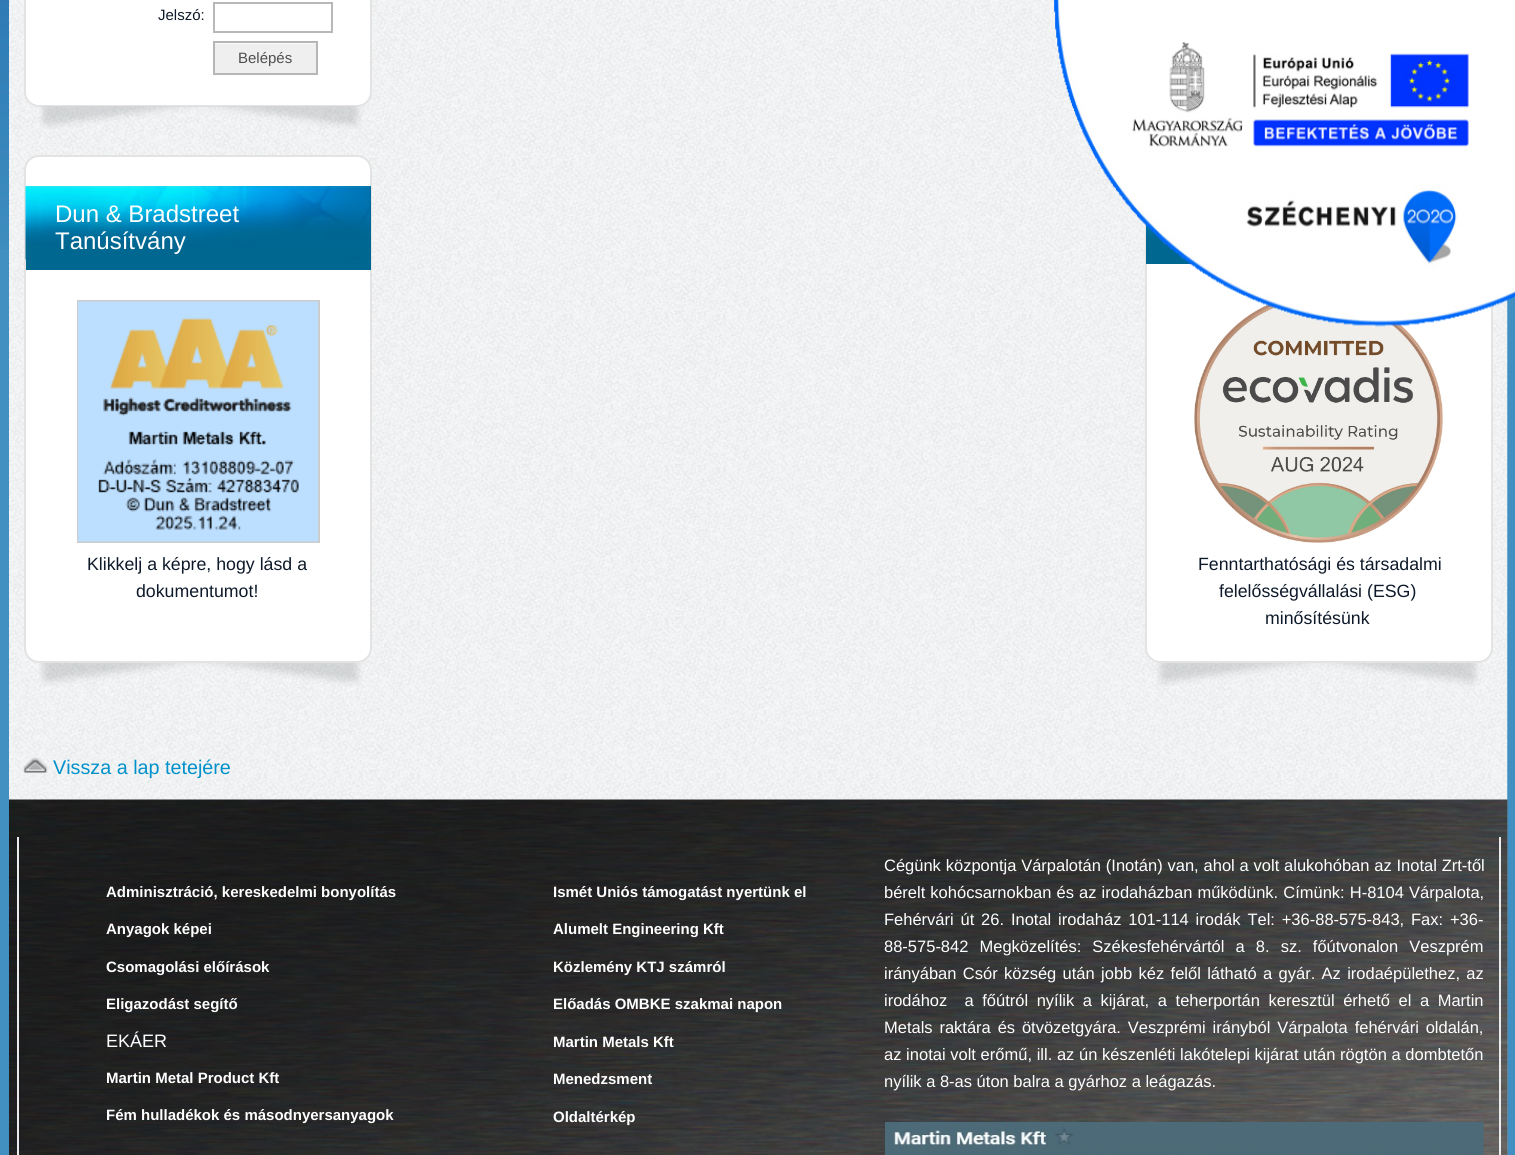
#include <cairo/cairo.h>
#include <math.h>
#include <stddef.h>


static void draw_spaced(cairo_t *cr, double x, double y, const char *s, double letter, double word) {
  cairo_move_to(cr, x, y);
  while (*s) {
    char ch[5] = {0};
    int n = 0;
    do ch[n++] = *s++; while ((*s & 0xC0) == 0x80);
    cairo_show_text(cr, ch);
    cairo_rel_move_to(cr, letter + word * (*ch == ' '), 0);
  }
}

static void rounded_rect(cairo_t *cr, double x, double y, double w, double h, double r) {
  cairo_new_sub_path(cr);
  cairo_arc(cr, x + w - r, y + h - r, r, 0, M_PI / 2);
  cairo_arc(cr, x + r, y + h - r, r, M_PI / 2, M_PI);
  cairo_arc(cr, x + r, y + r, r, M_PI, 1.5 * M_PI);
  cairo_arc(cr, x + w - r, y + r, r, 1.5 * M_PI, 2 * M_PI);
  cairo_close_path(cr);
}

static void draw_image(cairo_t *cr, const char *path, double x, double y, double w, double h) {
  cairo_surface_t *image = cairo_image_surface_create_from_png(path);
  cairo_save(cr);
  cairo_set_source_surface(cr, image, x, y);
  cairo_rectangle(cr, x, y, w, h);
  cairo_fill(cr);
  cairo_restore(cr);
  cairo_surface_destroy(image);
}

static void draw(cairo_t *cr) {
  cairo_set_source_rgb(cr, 66 / 255.0, 144 / 255.0, 193 / 255.0);
  cairo_paint(cr);
  draw_image(cr, "images/1.png", 0, 0, 9, 249);
  draw_image(cr, "images/2.png", 9, 0, 1499, 1155);
  cairo_set_source_rgb(cr, 1, 1, 1);
  rounded_rect(cr, 25, -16, 346, 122, 14);
  cairo_fill_preserve(cr);
  cairo_set_source_rgb(cr, 227 / 255.0, 227 / 255.0, 227 / 255.0);
  cairo_stroke(cr);
  cairo_rectangle(cr, 214, 3, 118, 29);
  cairo_set_source_rgb(cr, 184 / 255.0, 184 / 255.0, 184 / 255.0);
  cairo_stroke(cr);
  cairo_set_source_rgb(cr, 239 / 255.0, 239 / 255.0, 239 / 255.0);
  cairo_rectangle(cr, 215, 44, 101, 29);
  cairo_fill(cr);
  cairo_set_source_rgb(cr, 249 / 255.0, 249 / 255.0, 249 / 255.0);
  cairo_rectangle(cr, 215, 43, 102, 1);
  cairo_fill(cr);
  cairo_rectangle(cr, 214, 42, 103, 32);
  cairo_set_source_rgb(cr, 182 / 255.0, 182 / 255.0, 182 / 255.0);
  cairo_stroke(cr);
  draw_image(cr, "images/3.png", 39, 106, 323, 23);
  cairo_set_source_rgb(cr, 1, 1, 1);
  rounded_rect(cr, 25, 156, 346, 506, 14);
  cairo_fill_preserve(cr);
  cairo_set_source_rgb(cr, 227 / 255.0, 227 / 255.0, 227 / 255.0);
  cairo_stroke(cr);
  cairo_set_source_rgb(cr, 0, 103 / 255.0, 145 / 255.0);
  cairo_rectangle(cr, 26, 186, 345, 84);
  cairo_fill(cr);
  draw_image(cr, "images/4.png", 25, 186, 346, 74);
  cairo_rectangle(cr, 78, 301, 241, 241);
  cairo_set_source_rgb(cr, 204 / 255.0, 204 / 255.0, 204 / 255.0);
  cairo_stroke(cr);
  draw_image(cr, "images/5.png", 78, 301, 240, 241);
  draw_image(cr, "images/6.png", 39, 663, 323, 23);
  cairo_set_source_rgb(cr, 1, 1, 1);
  rounded_rect(cr, 1146, 150, 346, 512, 14);
  cairo_fill_preserve(cr);
  cairo_set_source_rgb(cr, 227 / 255.0, 227 / 255.0, 227 / 255.0);
  cairo_stroke(cr);
  cairo_set_source_rgb(cr, 0, 103 / 255.0, 145 / 255.0);
  cairo_rectangle(cr, 1146, 253, 46, 11);
  cairo_fill(cr);
  draw_image(cr, "images/7.png", 1146, 224, 30, 29);
  draw_image(cr, "images/8.png", 1194, 294, 249, 249);
  draw_image(cr, "images/9.png", 1156, 663, 323, 23);
  draw_image(cr, "images/10.png", 23, 757, 25, 16);
  draw_image(cr, "images/11.png", 9, 799, 1499, 356);
  draw_image(cr, "images/12.png", 1054, 0, 461, 327);
  cairo_set_source_rgb(cr, 234 / 255.0, 236 / 255.0, 238 / 255.0);
  cairo_rectangle(cr, 1499, 837, 2, 318);
  cairo_fill(cr);
  cairo_rectangle(cr, 17, 837, 2, 318);
  cairo_fill(cr);
  draw_image(cr, "images/13.png", 885, 1122, 599, 33);
  cairo_select_font_face(cr, "Liberation Sans", CAIRO_FONT_SLANT_NORMAL, CAIRO_FONT_WEIGHT_NORMAL);
  cairo_set_font_size(cr, 15);
  cairo_set_source_rgb(cr, 14 / 255.0, 26 / 255.0, 42 / 255.0);
  cairo_move_to(cr, 158, 20);
  cairo_show_text(cr, "Jelszó:");
  cairo_set_source_rgb(cr, 79 / 255.0, 79 / 255.0, 79 / 255.0);
  cairo_move_to(cr, 238, 63);
  cairo_show_text(cr, "Belépés");
  cairo_set_font_size(cr, 24);
  cairo_set_source_rgb(cr, 1, 1, 1);
  cairo_move_to(cr, 55, 222);
  cairo_show_text(cr, "Dun & Bradstreet");
  cairo_move_to(cr, 55, 249);
  cairo_show_text(cr, "Tanúsítvány");
  cairo_set_font_size(cr, 17.75);
  cairo_set_source_rgb(cr, 14 / 255.0, 26 / 255.0, 42 / 255.0);
  cairo_move_to(cr, 87, 570);
  cairo_show_text(cr, "Klikkelj a képre, hogy lásd a");
  cairo_move_to(cr, 136, 597);
  cairo_show_text(cr, "dokumentumot!");
  cairo_move_to(cr, 1198, 570);
  cairo_show_text(cr, "Fenntarthatósági és társadalmi");
  cairo_move_to(cr, 1219, 597);
  cairo_show_text(cr, "felelősségvállalási (ESG)");
  cairo_move_to(cr, 1265, 624);
  cairo_show_text(cr, "minősítésünk");
  cairo_set_font_size(cr, 19.75);
  cairo_set_source_rgb(cr, 0, 145 / 255.0, 203 / 255.0);
  cairo_move_to(cr, 53, 774);
  cairo_show_text(cr, "Vissza a lap tetejére");
  cairo_select_font_face(cr, "Liberation Sans", CAIRO_FONT_SLANT_NORMAL, CAIRO_FONT_WEIGHT_BOLD);
  cairo_set_font_size(cr, 15);
  cairo_set_source_rgb(cr, 1, 1, 1);
  cairo_move_to(cr, 106, 897);
  cairo_show_text(cr, "Adminisztráció, kereskedelmi bonyolítás");
  cairo_move_to(cr, 106, 934);
  cairo_show_text(cr, "Anyagok képei");
  cairo_move_to(cr, 106, 972);
  cairo_show_text(cr, "Csomagolási előírások");
  cairo_move_to(cr, 106, 1009);
  cairo_show_text(cr, "Eligazodást segítő");
  cairo_select_font_face(cr, "Liberation Sans", CAIRO_FONT_SLANT_NORMAL, CAIRO_FONT_WEIGHT_NORMAL);
  cairo_set_font_size(cr, 18);
  cairo_move_to(cr, 106, 1047);
  cairo_show_text(cr, "EKÁER");
  cairo_select_font_face(cr, "Liberation Sans", CAIRO_FONT_SLANT_NORMAL, CAIRO_FONT_WEIGHT_BOLD);
  cairo_set_font_size(cr, 15);
  cairo_move_to(cr, 106, 1083);
  cairo_show_text(cr, "Martin Metal Product Kft");
  cairo_move_to(cr, 106, 1120);
  cairo_show_text(cr, "Fém hulladékok és másodnyersanyagok");
  cairo_move_to(cr, 553, 897);
  cairo_show_text(cr, "Ismét Uniós támogatást nyertünk el");
  cairo_move_to(cr, 553, 934);
  cairo_show_text(cr, "Alumelt Engineering Kft");
  cairo_move_to(cr, 553, 972);
  cairo_show_text(cr, "Közlemény KTJ számról");
  cairo_move_to(cr, 553, 1009);
  cairo_show_text(cr, "Előadás OMBKE szakmai napon");
  cairo_move_to(cr, 553, 1047);
  cairo_show_text(cr, "Martin Metals Kft");
  cairo_move_to(cr, 553, 1084);
  cairo_show_text(cr, "Menedzsment");
  cairo_move_to(cr, 553, 1122);
  cairo_show_text(cr, "Oldaltérkép");
  cairo_select_font_face(cr, "Liberation Sans", CAIRO_FONT_SLANT_NORMAL, CAIRO_FONT_WEIGHT_NORMAL);
  cairo_set_font_size(cr, 16.5);
  draw_spaced(cr, 884, 871, "Cégünk központja Várpalotán (Inotán) van, ahol a volt alukohóban az Inotal Zrt-től", 0, 0.25);
  draw_spaced(cr, 884, 898, "bérelt kohócsarnokban és az irodaházban működünk. Címünk: H-8104 Várpalota,", 0, 0.5);
  draw_spaced(cr, 884, 925, "Fehérvári út 26. Inotal irodaház 101-114 irodák Tel: +36-88-575-843, Fax: +36-", 0, 2.25);
  draw_spaced(cr, 884, 952, "88-575-842 Megközelítés: Székesfehérvártól a 8. sz. főútvonalon Veszprém", 0, 6.5);
  draw_spaced(cr, 884, 979, "irányában Csór község után jobb kéz felől látható a gyár. Az irodaépülethez, az", 0, 1.75);
  draw_spaced(cr, 884, 1006, "irodához  a főútról nyílik a kijárat, a teherportán keresztül érhető el a Martin", 0, 4);
  draw_spaced(cr, 884, 1033, "Metals raktára és ötvözetgyára. Veszprémi irányból Várpalota fehérvári oldalán,", 0, 2.25);
  draw_spaced(cr, 884, 1060, "az inotai volt erőmű, ill. az ún készenléti lakótelepi kijárat után rögtön a dombtetőn", 0, 0.1);
  cairo_move_to(cr, 884, 1087);
  cairo_show_text(cr, "nyílik a 8-as úton balra a gyárhoz a leágazás.");
}

int main(void) {
  cairo_surface_t *surface = cairo_image_surface_create(CAIRO_FORMAT_RGB24, 1515, 1155);
  cairo_t *cr = cairo_create(surface);
  cairo_font_options_t *options = cairo_font_options_create();
  cairo_font_options_set_hint_metrics(options, CAIRO_HINT_METRICS_OFF);
  cairo_font_options_set_hint_style(options, CAIRO_HINT_STYLE_NONE);
  cairo_set_font_options(cr, options);
  cairo_set_miter_limit(cr, 4);
  draw(cr);
  cairo_surface_write_to_png(surface, "out.png");
  cairo_font_options_destroy(options);
  cairo_destroy(cr);
  cairo_surface_destroy(surface);
  return 0;
}
